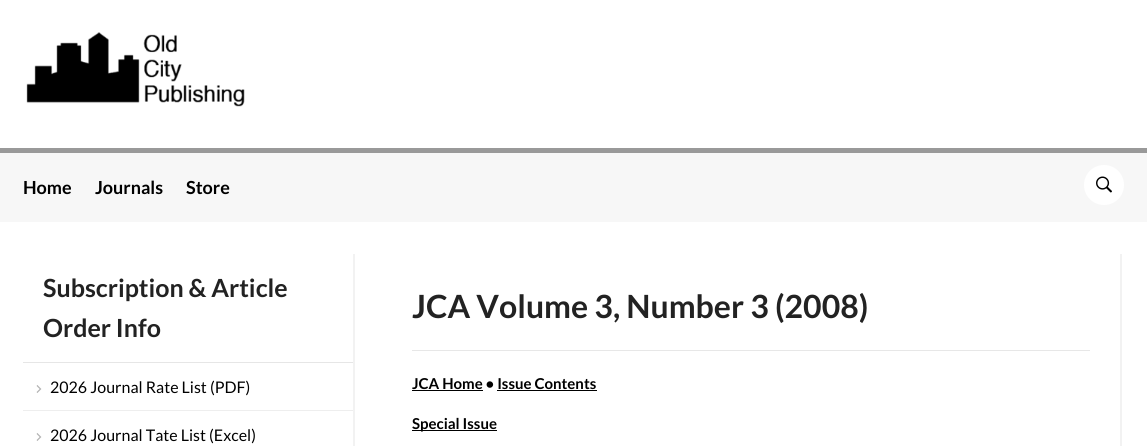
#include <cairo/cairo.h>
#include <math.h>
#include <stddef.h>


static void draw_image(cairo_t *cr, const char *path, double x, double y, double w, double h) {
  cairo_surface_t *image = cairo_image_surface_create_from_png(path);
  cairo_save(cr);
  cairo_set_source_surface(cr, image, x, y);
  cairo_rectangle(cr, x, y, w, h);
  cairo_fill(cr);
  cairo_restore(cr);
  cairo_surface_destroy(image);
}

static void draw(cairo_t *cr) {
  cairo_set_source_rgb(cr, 1, 1, 1);
  cairo_paint(cr);
  draw_image(cr, "images/1.png", 26, 32, 219, 75);
  cairo_set_source_rgb(cr, 247 / 255.0, 247 / 255.0, 247 / 255.0);
  cairo_rectangle(cr, 0, 153, 1147, 69);
  cairo_fill(cr);
  cairo_set_source_rgb(cr, 153 / 255.0, 153 / 255.0, 153 / 255.0);
  cairo_rectangle(cr, 0, 148, 1147, 5);
  cairo_fill(cr);
  cairo_set_source_rgb(cr, 1, 1, 1);
  cairo_arc(cr, 1104, 185, 20, 0, 2 * M_PI);
  cairo_fill(cr);
  draw_image(cr, "images/2.png", 1096, 176, 16, 17);
  cairo_set_source_rgb(cr, 242 / 255.0, 242 / 255.0, 242 / 255.0);
  cairo_new_path(cr);
  cairo_move_to(cr, 25, 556);
  cairo_line_to(cr, 25, 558);
  cairo_line_to(cr, 355, 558);
  cairo_line_to(cr, 355, 254);
  cairo_line_to(cr, 353, 254);
  cairo_line_to(cr, 353, 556);
  cairo_close_path(cr);
  cairo_fill(cr);
  cairo_set_source_rgb(cr, 230 / 255.0, 230 / 255.0, 230 / 255.0);
  cairo_rectangle(cr, 23, 362, 330, 1);
  cairo_fill(cr);
  cairo_set_source_rgb(cr, 238 / 255.0, 238 / 255.0, 238 / 255.0);
  cairo_rectangle(cr, 23, 410, 330, 1);
  cairo_fill(cr);
  draw_image(cr, "images/3.png", 36, 385, 6, 8);
  draw_image(cr, "images/3.png", 36, 433, 6, 8);
  cairo_set_source_rgb(cr, 242 / 255.0, 242 / 255.0, 242 / 255.0);
  cairo_new_path(cr);
  cairo_move_to(cr, 384, 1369);
  cairo_line_to(cr, 384, 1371);
  cairo_line_to(cr, 1122, 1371);
  cairo_line_to(cr, 1122, 254);
  cairo_line_to(cr, 1120, 254);
  cairo_line_to(cr, 1120, 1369);
  cairo_close_path(cr);
  cairo_fill(cr);
  cairo_set_source_rgb(cr, 231 / 255.0, 231 / 255.0, 231 / 255.0);
  cairo_rectangle(cr, 412, 350, 678, 1);
  cairo_fill(cr);
  cairo_set_source_rgb(cr, 0, 0, 0);
  cairo_rectangle(cr, 412, 390, 71, 1);
  cairo_fill(cr);
  cairo_rectangle(cr, 497, 390, 100, 1);
  cairo_fill(cr);
  cairo_rectangle(cr, 412, 430, 85, 1);
  cairo_fill(cr);
  cairo_select_font_face(cr, "Lato", CAIRO_FONT_SLANT_NORMAL, CAIRO_FONT_WEIGHT_BOLD);
  cairo_set_font_size(cr, 18);
  cairo_move_to(cr, 23, 194);
  cairo_show_text(cr, "Home");
  cairo_move_to(cr, 95, 194);
  cairo_show_text(cr, "Journals");
  cairo_move_to(cr, 186, 194);
  cairo_show_text(cr, "Store");
  cairo_set_font_size(cr, 25);
  cairo_set_source_rgb(cr, 34 / 255.0, 34 / 255.0, 34 / 255.0);
  cairo_move_to(cr, 43, 297);
  cairo_show_text(cr, "Subscription & Article");
  cairo_move_to(cr, 43, 337);
  cairo_show_text(cr, "Order Info");
  cairo_select_font_face(cr, "Lato", CAIRO_FONT_SLANT_NORMAL, CAIRO_FONT_WEIGHT_NORMAL);
  cairo_set_font_size(cr, 16);
  cairo_set_source_rgb(cr, 0, 0, 0);
  cairo_move_to(cr, 50, 393);
  cairo_show_text(cr, "2026 Journal Rate List (PDF)");
  cairo_move_to(cr, 50, 441);
  cairo_show_text(cr, "2026 Journal Tate List (Excel)");
  cairo_select_font_face(cr, "Lato", CAIRO_FONT_SLANT_NORMAL, CAIRO_FONT_WEIGHT_BOLD);
  cairo_set_font_size(cr, 32);
  cairo_set_source_rgb(cr, 34 / 255.0, 34 / 255.0, 34 / 255.0);
  cairo_move_to(cr, 412, 318);
  cairo_show_text(cr, "JCA Volume 3, Number 3 (2008)");
  cairo_set_font_size(cr, 15);
  cairo_set_source_rgb(cr, 0, 0, 0);
  cairo_move_to(cr, 412, 389);
  cairo_show_text(cr, "JCA Home • Issue Contents");
  cairo_move_to(cr, 412, 429);
  cairo_show_text(cr, "Special Issue");
}

int main(void) {
  cairo_surface_t *surface = cairo_image_surface_create(CAIRO_FORMAT_RGB24, 1147, 446);
  cairo_t *cr = cairo_create(surface);
  cairo_font_options_t *options = cairo_font_options_create();
  cairo_font_options_set_hint_metrics(options, CAIRO_HINT_METRICS_OFF);
  cairo_font_options_set_hint_style(options, CAIRO_HINT_STYLE_NONE);
  cairo_set_font_options(cr, options);
  cairo_set_miter_limit(cr, 4);
  draw(cr);
  cairo_surface_write_to_png(surface, "out.png");
  cairo_font_options_destroy(options);
  cairo_destroy(cr);
  cairo_surface_destroy(surface);
  return 0;
}
